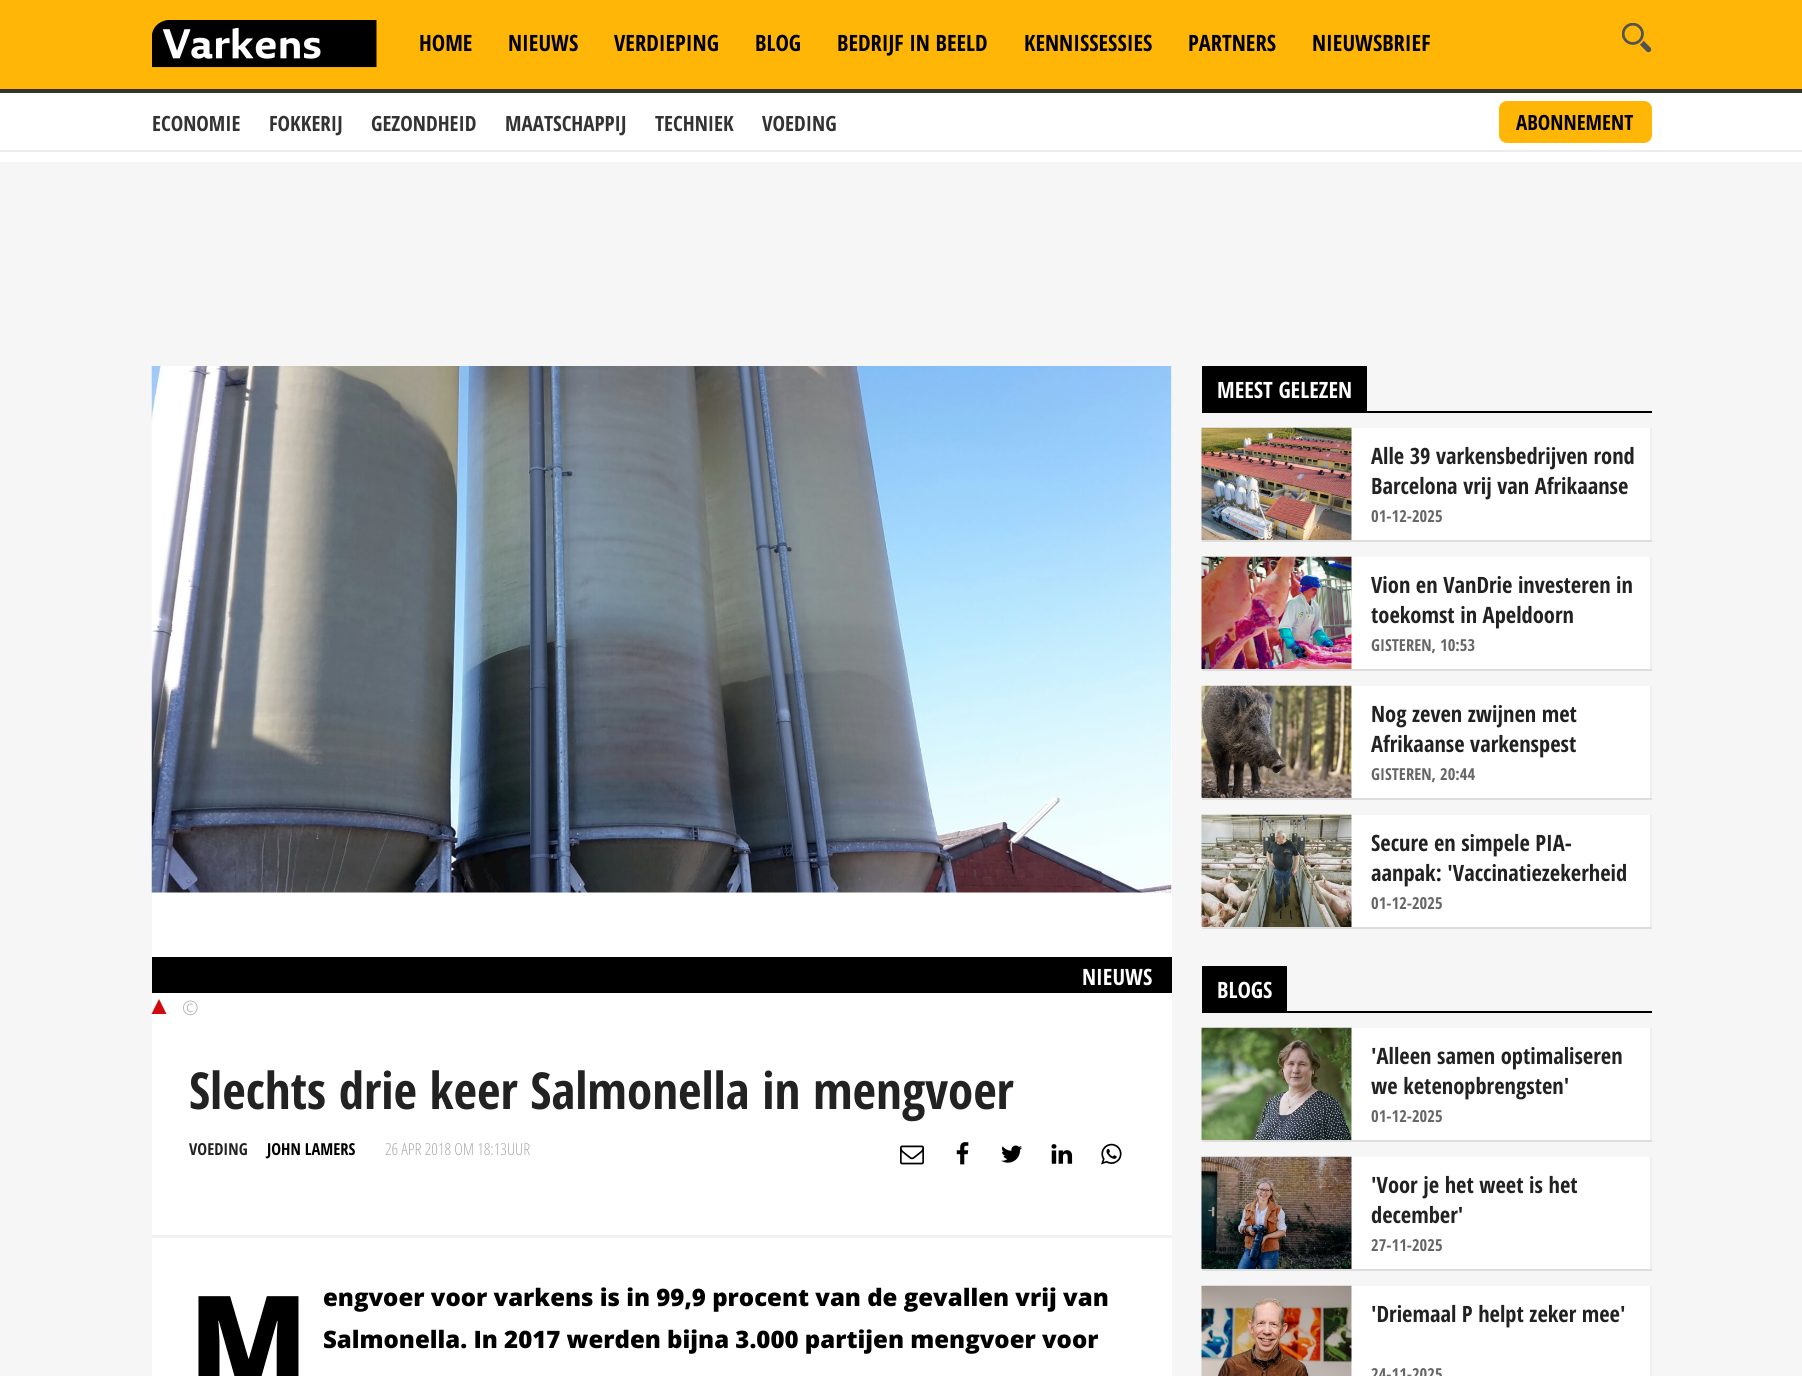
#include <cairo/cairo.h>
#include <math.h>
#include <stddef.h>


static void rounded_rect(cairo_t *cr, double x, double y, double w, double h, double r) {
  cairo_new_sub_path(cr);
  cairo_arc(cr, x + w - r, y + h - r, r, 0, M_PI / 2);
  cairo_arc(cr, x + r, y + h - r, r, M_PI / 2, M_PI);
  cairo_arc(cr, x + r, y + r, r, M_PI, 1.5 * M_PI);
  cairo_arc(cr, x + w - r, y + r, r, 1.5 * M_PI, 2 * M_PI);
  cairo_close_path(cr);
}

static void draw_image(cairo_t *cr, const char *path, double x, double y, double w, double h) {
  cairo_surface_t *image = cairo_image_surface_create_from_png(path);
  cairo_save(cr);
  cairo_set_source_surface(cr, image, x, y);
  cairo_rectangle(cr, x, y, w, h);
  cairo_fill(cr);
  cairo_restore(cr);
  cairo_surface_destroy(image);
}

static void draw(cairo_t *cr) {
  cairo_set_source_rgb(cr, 246 / 255.0, 246 / 255.0, 246 / 255.0);
  cairo_paint(cr);
  cairo_set_source_rgb(cr, 1, 1, 1);
  cairo_rectangle(cr, 0, 152, 1802, 10);
  cairo_fill(cr);
  cairo_set_source_rgb(cr, 1, 182 / 255.0, 6 / 255.0);
  cairo_rectangle(cr, 0, 0, 1802, 89);
  cairo_fill(cr);
  cairo_set_source_rgb(cr, 51 / 255.0, 51 / 255.0, 51 / 255.0);
  cairo_rectangle(cr, 0, 89, 1802, 4);
  cairo_fill(cr);
  draw_image(cr, "images/1.png", 152, 20, 225, 48);
  draw_image(cr, "images/2.png", 1622, 23, 30, 30);
  cairo_set_source_rgb(cr, 1, 1, 1);
  cairo_rectangle(cr, 0, 93, 1802, 57);
  cairo_fill(cr);
  cairo_set_source_rgb(cr, 237 / 255.0, 237 / 255.0, 237 / 255.0);
  cairo_rectangle(cr, 0, 150, 1802, 2);
  cairo_fill(cr);
  cairo_set_source_rgb(cr, 1, 182 / 255.0, 6 / 255.0);
  rounded_rect(cr, 1500.5, 102.5, 150, 39, 6.5);
  cairo_fill_preserve(cr);
  cairo_set_line_width(cr, 3);
  cairo_stroke(cr);
  cairo_set_source_rgb(cr, 1, 1, 1);
  cairo_rectangle(cr, 152, 366, 1020, 1010);
  cairo_fill(cr);
  draw_image(cr, "images/3.png", 151, 366, 1021, 527);
  cairo_set_source_rgb(cr, 0, 0, 0);
  cairo_rectangle(cr, 152, 957, 1020, 36);
  cairo_fill(cr);
  cairo_set_source_rgb(cr, 209 / 255.0, 10 / 255.0, 16 / 255.0);
  cairo_new_path(cr);
  cairo_move_to(cr, 166.5, 1014);
  cairo_line_to(cr, 151.5, 1014);
  cairo_line_to(cr, 159, 999);
  cairo_close_path(cr);
  cairo_fill(cr);
  cairo_set_source_rgb(cr, 241 / 255.0, 241 / 255.0, 241 / 255.0);
  cairo_rectangle(cr, 152, 1235, 1020, 3);
  cairo_fill(cr);
  draw_image(cr, "images/4.png", 900, 1145, 24, 20);
  draw_image(cr, "images/5.png", 956, 1142, 13, 23);
  draw_image(cr, "images/6.png", 1001, 1145, 21, 18);
  draw_image(cr, "images/7.png", 1051, 1144, 22, 20);
  draw_image(cr, "images/8.png", 1101, 1143, 21, 22);
  cairo_set_source_rgb(cr, 0, 0, 0);
  cairo_rectangle(cr, 1202, 411, 450, 2);
  cairo_fill(cr);
  cairo_rectangle(cr, 1202, 366, 165, 45);
  cairo_fill(cr);
  cairo_set_source_rgb(cr, 1, 1, 1);
  cairo_rectangle(cr, 1351, 428, 299, 112);
  cairo_fill(cr);
  cairo_set_source_rgb(cr, 238 / 255.0, 238 / 255.0, 238 / 255.0);
  cairo_rectangle(cr, 1650, 428, 2, 114);
  cairo_fill(cr);
  cairo_set_source_rgb(cr, 221 / 255.0, 221 / 255.0, 221 / 255.0);
  cairo_rectangle(cr, 1202, 540, 450, 2);
  cairo_fill(cr);
  draw_image(cr, "images/9.png", 1201, 427, 151, 113);
  cairo_set_source_rgb(cr, 1, 1, 1);
  cairo_rectangle(cr, 1351, 557, 299, 112);
  cairo_fill(cr);
  cairo_set_source_rgb(cr, 238 / 255.0, 238 / 255.0, 238 / 255.0);
  cairo_rectangle(cr, 1650, 557, 2, 114);
  cairo_fill(cr);
  cairo_set_source_rgb(cr, 221 / 255.0, 221 / 255.0, 221 / 255.0);
  cairo_rectangle(cr, 1202, 669, 450, 2);
  cairo_fill(cr);
  draw_image(cr, "images/10.png", 1201, 556, 151, 113);
  cairo_set_source_rgb(cr, 1, 1, 1);
  cairo_rectangle(cr, 1351, 686, 299, 112);
  cairo_fill(cr);
  cairo_set_source_rgb(cr, 238 / 255.0, 238 / 255.0, 238 / 255.0);
  cairo_rectangle(cr, 1650, 686, 2, 114);
  cairo_fill(cr);
  cairo_set_source_rgb(cr, 221 / 255.0, 221 / 255.0, 221 / 255.0);
  cairo_rectangle(cr, 1202, 798, 450, 2);
  cairo_fill(cr);
  draw_image(cr, "images/11.png", 1201, 685, 151, 113);
  cairo_set_source_rgb(cr, 1, 1, 1);
  cairo_rectangle(cr, 1351, 815, 299, 112);
  cairo_fill(cr);
  cairo_set_source_rgb(cr, 238 / 255.0, 238 / 255.0, 238 / 255.0);
  cairo_rectangle(cr, 1650, 815, 2, 114);
  cairo_fill(cr);
  cairo_set_source_rgb(cr, 221 / 255.0, 221 / 255.0, 221 / 255.0);
  cairo_rectangle(cr, 1202, 927, 450, 2);
  cairo_fill(cr);
  draw_image(cr, "images/12.png", 1201, 814, 151, 113);
  cairo_set_source_rgb(cr, 0, 0, 0);
  cairo_rectangle(cr, 1202, 1011, 450, 2);
  cairo_fill(cr);
  cairo_rectangle(cr, 1202, 966, 85, 45);
  cairo_fill(cr);
  cairo_set_source_rgb(cr, 1, 1, 1);
  cairo_rectangle(cr, 1351, 1028, 299, 112);
  cairo_fill(cr);
  cairo_set_source_rgb(cr, 238 / 255.0, 238 / 255.0, 238 / 255.0);
  cairo_rectangle(cr, 1650, 1028, 2, 114);
  cairo_fill(cr);
  cairo_set_source_rgb(cr, 221 / 255.0, 221 / 255.0, 221 / 255.0);
  cairo_rectangle(cr, 1202, 1140, 450, 2);
  cairo_fill(cr);
  draw_image(cr, "images/13.png", 1201, 1027, 151, 113);
  cairo_set_source_rgb(cr, 1, 1, 1);
  cairo_rectangle(cr, 1351, 1157, 299, 112);
  cairo_fill(cr);
  cairo_set_source_rgb(cr, 238 / 255.0, 238 / 255.0, 238 / 255.0);
  cairo_rectangle(cr, 1650, 1157, 2, 114);
  cairo_fill(cr);
  cairo_set_source_rgb(cr, 221 / 255.0, 221 / 255.0, 221 / 255.0);
  cairo_rectangle(cr, 1202, 1269, 450, 2);
  cairo_fill(cr);
  draw_image(cr, "images/14.png", 1201, 1156, 151, 113);
  cairo_set_source_rgb(cr, 1, 1, 1);
  cairo_rectangle(cr, 1351, 1286, 299, 90);
  cairo_fill(cr);
  cairo_set_source_rgb(cr, 238 / 255.0, 238 / 255.0, 238 / 255.0);
  cairo_rectangle(cr, 1650, 1286, 2, 90);
  cairo_fill(cr);
  draw_image(cr, "images/15.png", 1201, 1285, 151, 91);
  cairo_select_font_face(cr, "Open Sans Condensed", CAIRO_FONT_SLANT_NORMAL, CAIRO_FONT_WEIGHT_BOLD);
  cairo_set_font_size(cr, 22.5);
  cairo_set_source_rgb(cr, 0, 0, 0);
  cairo_move_to(cr, 419, 51);
  cairo_show_text(cr, "HOME");
  cairo_move_to(cr, 508, 51);
  cairo_show_text(cr, "NIEUWS");
  cairo_move_to(cr, 614, 51);
  cairo_show_text(cr, "VERDIEPING");
  cairo_move_to(cr, 755, 51);
  cairo_show_text(cr, "BLOG");
  cairo_move_to(cr, 837, 51);
  cairo_show_text(cr, "BEDRIJF IN BEELD");
  cairo_move_to(cr, 1024, 51);
  cairo_show_text(cr, "KENNISSESSIES");
  cairo_move_to(cr, 1188, 51);
  cairo_show_text(cr, "PARTNERS");
  cairo_move_to(cr, 1312, 51);
  cairo_show_text(cr, "NIEUWSBRIEF");
  cairo_set_font_size(cr, 21);
  cairo_set_source_rgb(cr, 51 / 255.0, 51 / 255.0, 51 / 255.0);
  cairo_move_to(cr, 152, 131);
  cairo_show_text(cr, "ECONOMIE");
  cairo_move_to(cr, 269, 131);
  cairo_show_text(cr, "FOKKERIJ");
  cairo_move_to(cr, 371, 131);
  cairo_show_text(cr, "GEZONDHEID");
  cairo_move_to(cr, 505, 131);
  cairo_show_text(cr, "MAATSCHAPPIJ");
  cairo_move_to(cr, 655, 131);
  cairo_show_text(cr, "TECHNIEK");
  cairo_move_to(cr, 762, 131);
  cairo_show_text(cr, "VOEDING");
  cairo_set_source_rgb(cr, 0, 0, 0);
  cairo_move_to(cr, 1516, 130);
  cairo_show_text(cr, "ABONNEMENT");
  cairo_set_font_size(cr, 22.5);
  cairo_set_source_rgb(cr, 1, 1, 1);
  cairo_move_to(cr, 1082, 985);
  cairo_show_text(cr, "NIEUWS");
  cairo_select_font_face(cr, "Open Sans Condensed Light", CAIRO_FONT_SLANT_NORMAL, CAIRO_FONT_WEIGHT_NORMAL);
  cairo_set_font_size(cr, 20);
  cairo_set_source_rgb(cr, 180 / 255.0, 180 / 255.0, 180 / 255.0);
  cairo_move_to(cr, 182, 1015);
  cairo_show_text(cr, "©");
  cairo_select_font_face(cr, "Open Sans Condensed", CAIRO_FONT_SLANT_NORMAL, CAIRO_FONT_WEIGHT_BOLD);
  cairo_set_font_size(cr, 51);
  cairo_set_source_rgb(cr, 34 / 255.0, 34 / 255.0, 34 / 255.0);
  cairo_move_to(cr, 189, 1109);
  cairo_show_text(cr, "Slechts drie keer Salmonella in mengvoer");
  cairo_set_font_size(cr, 16.5);
  cairo_move_to(cr, 189, 1155);
  cairo_show_text(cr, "VOEDING");
  cairo_set_source_rgb(cr, 0, 0, 0);
  cairo_move_to(cr, 267, 1155);
  cairo_show_text(cr, "JOHN LAMERS");
  cairo_select_font_face(cr, "Open Sans Condensed Light", CAIRO_FONT_SLANT_NORMAL, CAIRO_FONT_WEIGHT_NORMAL);
  cairo_set_source_rgb(cr, 170 / 255.0, 170 / 255.0, 170 / 255.0);
  cairo_move_to(cr, 385, 1155);
  cairo_show_text(cr, "26 APR 2018 OM 18:13UUR");
  cairo_select_font_face(cr, "Noto Sans Black", CAIRO_FONT_SLANT_NORMAL, CAIRO_FONT_WEIGHT_NORMAL);
  cairo_set_font_size(cr, 123);
  cairo_set_source_rgb(cr, 0, 0, 0);
  cairo_move_to(cr, 189, 1384);
  cairo_show_text(cr, "M");
  cairo_select_font_face(cr, "Open Sans ExtraBold", CAIRO_FONT_SLANT_NORMAL, CAIRO_FONT_WEIGHT_NORMAL);
  cairo_set_font_size(cr, 24);
  cairo_move_to(cr, 323, 1306);
  cairo_show_text(cr, "engvoer voor varkens is in 99,9 procent van de gevallen vrij van");
  cairo_move_to(cr, 323, 1348);
  cairo_show_text(cr, "Salmonella. In 2017 werden bijna 3.000 partijen mengvoer voor");
  cairo_select_font_face(cr, "Open Sans Condensed", CAIRO_FONT_SLANT_NORMAL, CAIRO_FONT_WEIGHT_BOLD);
  cairo_set_font_size(cr, 22.5);
  cairo_set_source_rgb(cr, 1, 1, 1);
  cairo_move_to(cr, 1217, 398);
  cairo_show_text(cr, "MEEST GELEZEN");
  cairo_set_source_rgb(cr, 34 / 255.0, 34 / 255.0, 34 / 255.0);
  cairo_move_to(cr, 1371, 464);
  cairo_show_text(cr, "Alle 39 varkensbedrijven rond");
  cairo_move_to(cr, 1371, 494);
  cairo_show_text(cr, "Barcelona vrij van Afrikaanse");
  cairo_set_font_size(cr, 16.5);
  cairo_set_source_rgb(cr, 102 / 255.0, 102 / 255.0, 102 / 255.0);
  cairo_move_to(cr, 1371, 522);
  cairo_show_text(cr, "01-12-2025");
  cairo_set_font_size(cr, 22.5);
  cairo_set_source_rgb(cr, 34 / 255.0, 34 / 255.0, 34 / 255.0);
  cairo_move_to(cr, 1371, 593);
  cairo_show_text(cr, "Vion en VanDrie investeren in");
  cairo_move_to(cr, 1371, 623);
  cairo_show_text(cr, "toekomst in Apeldoorn");
  cairo_set_font_size(cr, 16.5);
  cairo_set_source_rgb(cr, 102 / 255.0, 102 / 255.0, 102 / 255.0);
  cairo_move_to(cr, 1371, 651);
  cairo_show_text(cr, "GISTEREN, 10:53");
  cairo_set_font_size(cr, 22.5);
  cairo_set_source_rgb(cr, 34 / 255.0, 34 / 255.0, 34 / 255.0);
  cairo_move_to(cr, 1371, 722);
  cairo_show_text(cr, "Nog zeven zwijnen met");
  cairo_move_to(cr, 1371, 752);
  cairo_show_text(cr, "Afrikaanse varkenspest");
  cairo_set_font_size(cr, 16.5);
  cairo_set_source_rgb(cr, 102 / 255.0, 102 / 255.0, 102 / 255.0);
  cairo_move_to(cr, 1371, 780);
  cairo_show_text(cr, "GISTEREN, 20:44");
  cairo_set_font_size(cr, 22.5);
  cairo_set_source_rgb(cr, 34 / 255.0, 34 / 255.0, 34 / 255.0);
  cairo_move_to(cr, 1371, 851);
  cairo_show_text(cr, "Secure en simpele PIA-");
  cairo_move_to(cr, 1371, 881);
  cairo_show_text(cr, "aanpak: 'Vaccinatiezekerheid");
  cairo_set_font_size(cr, 16.5);
  cairo_set_source_rgb(cr, 102 / 255.0, 102 / 255.0, 102 / 255.0);
  cairo_move_to(cr, 1371, 909);
  cairo_show_text(cr, "01-12-2025");
  cairo_set_font_size(cr, 22.5);
  cairo_set_source_rgb(cr, 1, 1, 1);
  cairo_move_to(cr, 1217, 998);
  cairo_show_text(cr, "BLOGS");
  cairo_set_source_rgb(cr, 34 / 255.0, 34 / 255.0, 34 / 255.0);
  cairo_move_to(cr, 1371, 1064);
  cairo_show_text(cr, "'Alleen samen optimaliseren");
  cairo_move_to(cr, 1371, 1094);
  cairo_show_text(cr, "we ketenopbrengsten'");
  cairo_set_font_size(cr, 16.5);
  cairo_set_source_rgb(cr, 102 / 255.0, 102 / 255.0, 102 / 255.0);
  cairo_move_to(cr, 1371, 1122);
  cairo_show_text(cr, "01-12-2025");
  cairo_set_font_size(cr, 22.5);
  cairo_set_source_rgb(cr, 34 / 255.0, 34 / 255.0, 34 / 255.0);
  cairo_move_to(cr, 1371, 1193);
  cairo_show_text(cr, "'Voor je het weet is het");
  cairo_move_to(cr, 1371, 1223);
  cairo_show_text(cr, "december'");
  cairo_set_font_size(cr, 16.5);
  cairo_set_source_rgb(cr, 102 / 255.0, 102 / 255.0, 102 / 255.0);
  cairo_move_to(cr, 1371, 1251);
  cairo_show_text(cr, "27-11-2025");
  cairo_set_font_size(cr, 22.5);
  cairo_set_source_rgb(cr, 34 / 255.0, 34 / 255.0, 34 / 255.0);
  cairo_move_to(cr, 1371, 1322);
  cairo_show_text(cr, "'Driemaal P helpt zeker mee'");
  cairo_set_font_size(cr, 16.5);
  cairo_set_source_rgb(cr, 102 / 255.0, 102 / 255.0, 102 / 255.0);
  cairo_move_to(cr, 1371, 1380);
  cairo_show_text(cr, "24-11-2025");
}

int main(void) {
  cairo_surface_t *surface = cairo_image_surface_create(CAIRO_FORMAT_RGB24, 1802, 1376);
  cairo_t *cr = cairo_create(surface);
  cairo_font_options_t *options = cairo_font_options_create();
  cairo_font_options_set_hint_metrics(options, CAIRO_HINT_METRICS_OFF);
  cairo_font_options_set_hint_style(options, CAIRO_HINT_STYLE_NONE);
  cairo_set_font_options(cr, options);
  cairo_set_miter_limit(cr, 4);
  draw(cr);
  cairo_surface_write_to_png(surface, "out.png");
  cairo_font_options_destroy(options);
  cairo_destroy(cr);
  cairo_surface_destroy(surface);
  return 0;
}
